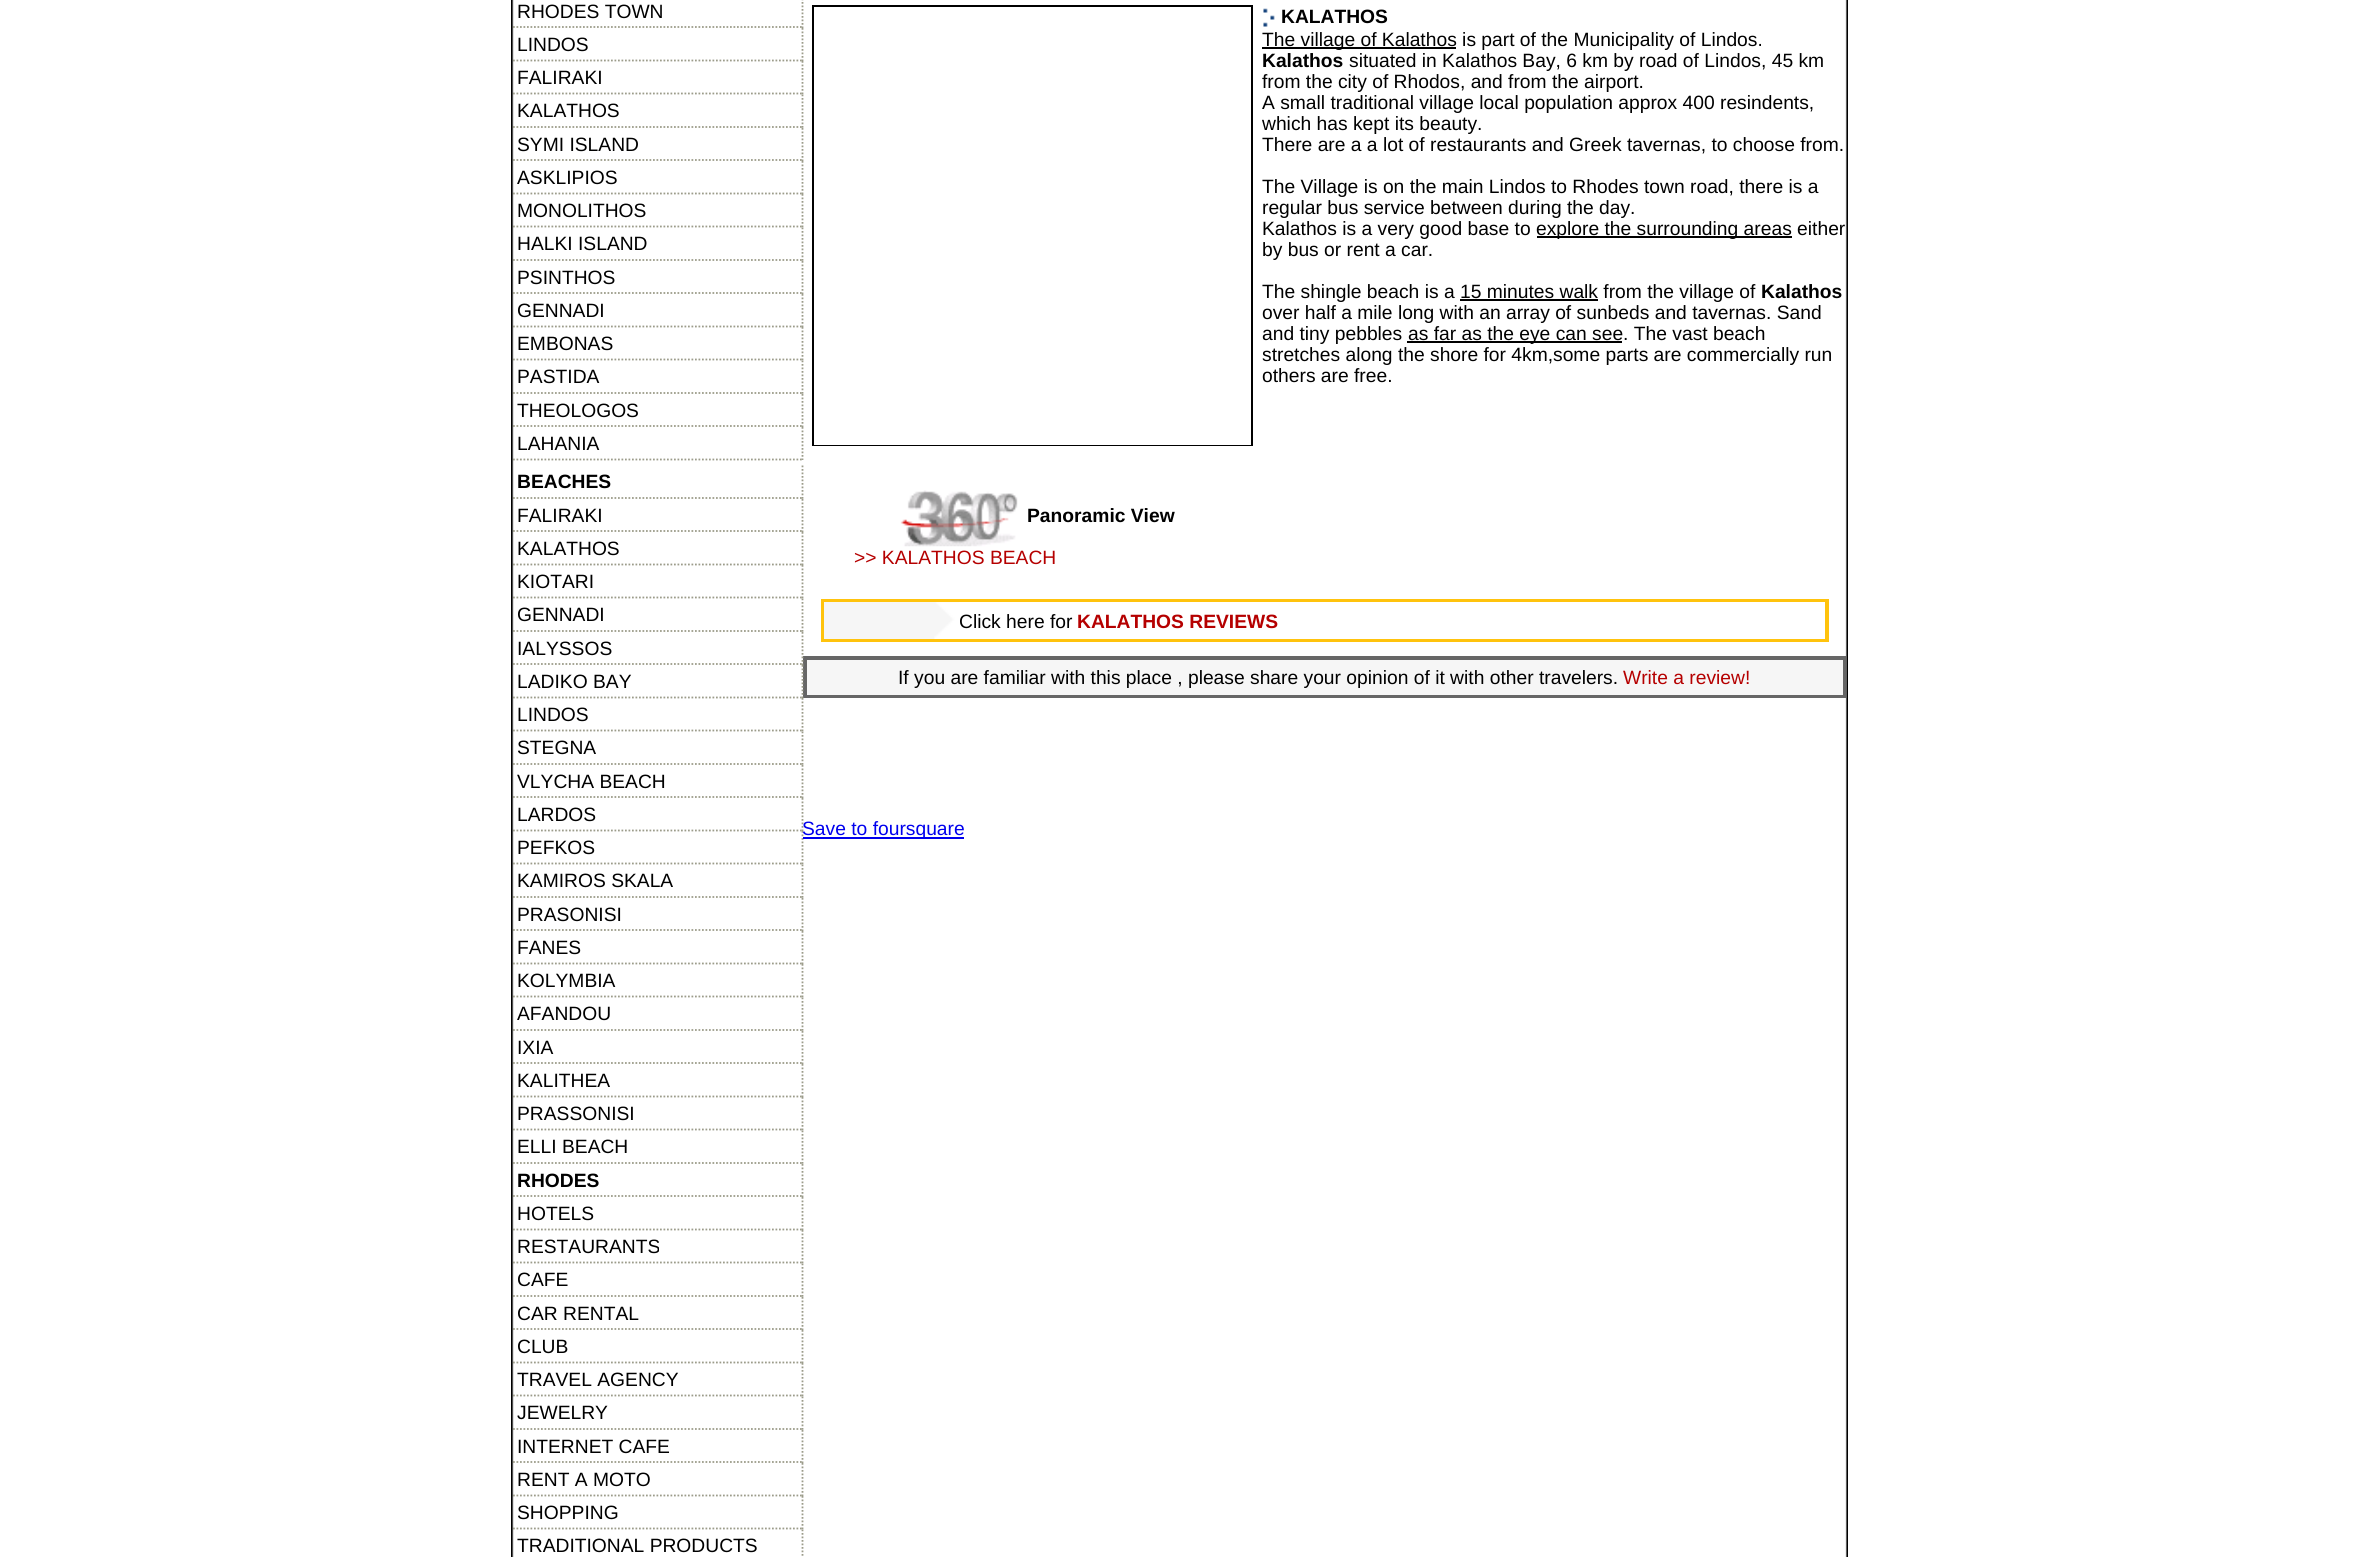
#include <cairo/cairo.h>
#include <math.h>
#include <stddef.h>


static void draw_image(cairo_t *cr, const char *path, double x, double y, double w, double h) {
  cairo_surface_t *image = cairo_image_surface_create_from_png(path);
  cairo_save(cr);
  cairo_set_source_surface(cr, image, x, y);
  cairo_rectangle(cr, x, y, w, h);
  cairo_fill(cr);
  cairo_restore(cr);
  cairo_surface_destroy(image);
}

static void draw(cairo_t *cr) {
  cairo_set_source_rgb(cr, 1, 1, 1);
  cairo_paint(cr);
  draw_image(cr, "images/1.png", 511, 0, 1337, 1557);
  cairo_new_path(cr);
  cairo_move_to(cr, 802.5, -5);
  cairo_line_to(cr, 802.5, 28);
  cairo_set_source_rgb(cr, 156 / 255.0, 156 / 255.0, 138 / 255.0);
  cairo_set_line_width(cr, 1.8);
  cairo_set_dash(cr, (double[]){1.75, 1.75}, 2, 0);
  cairo_stroke(cr);
  cairo_new_path(cr);
  cairo_move_to(cr, 513, 27);
  cairo_line_to(cr, 803, 27);
  cairo_stroke(cr);
  cairo_new_path(cr);
  cairo_move_to(cr, 802.5, 28);
  cairo_line_to(cr, 802.5, 61);
  cairo_stroke(cr);
  cairo_new_path(cr);
  cairo_move_to(cr, 513, 60.5);
  cairo_line_to(cr, 803, 60.5);
  cairo_stroke(cr);
  cairo_new_path(cr);
  cairo_move_to(cr, 802.5, 61);
  cairo_line_to(cr, 802.5, 94.5);
  cairo_stroke(cr);
  cairo_new_path(cr);
  cairo_move_to(cr, 513, 93.5);
  cairo_line_to(cr, 803, 93.5);
  cairo_stroke(cr);
  cairo_new_path(cr);
  cairo_move_to(cr, 802.5, 94.5);
  cairo_line_to(cr, 802.5, 128);
  cairo_stroke(cr);
  cairo_new_path(cr);
  cairo_move_to(cr, 513, 127);
  cairo_line_to(cr, 803, 127);
  cairo_stroke(cr);
  cairo_new_path(cr);
  cairo_move_to(cr, 802.5, 128);
  cairo_line_to(cr, 802.5, 161);
  cairo_stroke(cr);
  cairo_new_path(cr);
  cairo_move_to(cr, 513, 160);
  cairo_line_to(cr, 803, 160);
  cairo_stroke(cr);
  cairo_new_path(cr);
  cairo_move_to(cr, 802.5, 161);
  cairo_line_to(cr, 802.5, 194);
  cairo_stroke(cr);
  cairo_new_path(cr);
  cairo_move_to(cr, 513, 193.5);
  cairo_line_to(cr, 803, 193.5);
  cairo_stroke(cr);
  cairo_new_path(cr);
  cairo_move_to(cr, 802.5, 194);
  cairo_line_to(cr, 802.5, 227.5);
  cairo_stroke(cr);
  cairo_new_path(cr);
  cairo_move_to(cr, 513, 226.5);
  cairo_line_to(cr, 803, 226.5);
  cairo_stroke(cr);
  cairo_new_path(cr);
  cairo_move_to(cr, 802.5, 227.5);
  cairo_line_to(cr, 802.5, 261);
  cairo_stroke(cr);
  cairo_new_path(cr);
  cairo_move_to(cr, 513, 260);
  cairo_line_to(cr, 803, 260);
  cairo_stroke(cr);
  cairo_new_path(cr);
  cairo_move_to(cr, 802.5, 261);
  cairo_line_to(cr, 802.5, 294);
  cairo_stroke(cr);
  cairo_new_path(cr);
  cairo_move_to(cr, 513, 293);
  cairo_line_to(cr, 803, 293);
  cairo_stroke(cr);
  cairo_new_path(cr);
  cairo_move_to(cr, 802.5, 294);
  cairo_line_to(cr, 802.5, 327);
  cairo_stroke(cr);
  cairo_new_path(cr);
  cairo_move_to(cr, 513, 326.5);
  cairo_line_to(cr, 803, 326.5);
  cairo_stroke(cr);
  cairo_new_path(cr);
  cairo_move_to(cr, 802.5, 327);
  cairo_line_to(cr, 802.5, 360.5);
  cairo_stroke(cr);
  cairo_new_path(cr);
  cairo_move_to(cr, 513, 359.5);
  cairo_line_to(cr, 803, 359.5);
  cairo_stroke(cr);
  cairo_new_path(cr);
  cairo_move_to(cr, 802.5, 360.5);
  cairo_line_to(cr, 802.5, 394);
  cairo_stroke(cr);
  cairo_new_path(cr);
  cairo_move_to(cr, 513, 393);
  cairo_line_to(cr, 803, 393);
  cairo_stroke(cr);
  cairo_new_path(cr);
  cairo_move_to(cr, 802.5, 394);
  cairo_line_to(cr, 802.5, 427);
  cairo_stroke(cr);
  cairo_new_path(cr);
  cairo_move_to(cr, 513, 426);
  cairo_line_to(cr, 803, 426);
  cairo_stroke(cr);
  cairo_new_path(cr);
  cairo_move_to(cr, 802.5, 427);
  cairo_line_to(cr, 802.5, 460);
  cairo_stroke(cr);
  cairo_new_path(cr);
  cairo_move_to(cr, 513, 459.5);
  cairo_line_to(cr, 803, 459.5);
  cairo_stroke(cr);
  cairo_new_path(cr);
  cairo_move_to(cr, 802.5, 465.5);
  cairo_line_to(cr, 802.5, 499);
  cairo_stroke(cr);
  cairo_new_path(cr);
  cairo_move_to(cr, 513, 498);
  cairo_line_to(cr, 803, 498);
  cairo_stroke(cr);
  cairo_new_path(cr);
  cairo_move_to(cr, 802.5, 499);
  cairo_line_to(cr, 802.5, 532);
  cairo_stroke(cr);
  cairo_new_path(cr);
  cairo_move_to(cr, 513, 531);
  cairo_line_to(cr, 803, 531);
  cairo_stroke(cr);
  cairo_new_path(cr);
  cairo_move_to(cr, 802.5, 532);
  cairo_line_to(cr, 802.5, 565);
  cairo_stroke(cr);
  cairo_new_path(cr);
  cairo_move_to(cr, 513, 564.5);
  cairo_line_to(cr, 803, 564.5);
  cairo_stroke(cr);
  cairo_new_path(cr);
  cairo_move_to(cr, 802.5, 565);
  cairo_line_to(cr, 802.5, 598.5);
  cairo_stroke(cr);
  cairo_new_path(cr);
  cairo_move_to(cr, 513, 597.5);
  cairo_line_to(cr, 803, 597.5);
  cairo_stroke(cr);
  cairo_new_path(cr);
  cairo_move_to(cr, 802.5, 598.5);
  cairo_line_to(cr, 802.5, 632);
  cairo_stroke(cr);
  cairo_new_path(cr);
  cairo_move_to(cr, 513, 631);
  cairo_line_to(cr, 803, 631);
  cairo_stroke(cr);
  cairo_rectangle(cr, 804, 657, 1041, 40);
  cairo_set_source_rgb(cr, 102 / 255.0, 102 / 255.0, 102 / 255.0);
  cairo_set_line_width(cr, 2);
  cairo_set_dash(cr, NULL, 0, 0);
  cairo_stroke(cr);
  cairo_new_path(cr);
  cairo_move_to(cr, 802.5, 632);
  cairo_line_to(cr, 802.5, 665);
  cairo_set_source_rgb(cr, 156 / 255.0, 156 / 255.0, 138 / 255.0);
  cairo_set_line_width(cr, 1.8);
  cairo_set_dash(cr, (double[]){1.75, 1.75}, 2, 0);
  cairo_stroke(cr);
  cairo_new_path(cr);
  cairo_move_to(cr, 513, 664);
  cairo_line_to(cr, 803, 664);
  cairo_stroke(cr);
  cairo_new_path(cr);
  cairo_move_to(cr, 802.5, 665);
  cairo_line_to(cr, 802.5, 698);
  cairo_stroke(cr);
  cairo_new_path(cr);
  cairo_move_to(cr, 513, 697.5);
  cairo_line_to(cr, 803, 697.5);
  cairo_stroke(cr);
  cairo_new_path(cr);
  cairo_move_to(cr, 802.5, 698);
  cairo_line_to(cr, 802.5, 731.5);
  cairo_stroke(cr);
  cairo_new_path(cr);
  cairo_move_to(cr, 513, 730.5);
  cairo_line_to(cr, 803, 730.5);
  cairo_stroke(cr);
  cairo_new_path(cr);
  cairo_move_to(cr, 802.5, 731.5);
  cairo_line_to(cr, 802.5, 765);
  cairo_stroke(cr);
  cairo_new_path(cr);
  cairo_move_to(cr, 513, 764);
  cairo_line_to(cr, 803, 764);
  cairo_stroke(cr);
  cairo_new_path(cr);
  cairo_move_to(cr, 802.5, 765);
  cairo_line_to(cr, 802.5, 798);
  cairo_stroke(cr);
  cairo_new_path(cr);
  cairo_move_to(cr, 513, 797);
  cairo_line_to(cr, 803, 797);
  cairo_stroke(cr);
  cairo_new_path(cr);
  cairo_move_to(cr, 802.5, 798);
  cairo_line_to(cr, 802.5, 831);
  cairo_stroke(cr);
  cairo_new_path(cr);
  cairo_move_to(cr, 513, 830.5);
  cairo_line_to(cr, 803, 830.5);
  cairo_stroke(cr);
  cairo_new_path(cr);
  cairo_move_to(cr, 802.5, 831);
  cairo_line_to(cr, 802.5, 864.5);
  cairo_stroke(cr);
  cairo_new_path(cr);
  cairo_move_to(cr, 513, 863.5);
  cairo_line_to(cr, 803, 863.5);
  cairo_stroke(cr);
  cairo_new_path(cr);
  cairo_move_to(cr, 802.5, 864.5);
  cairo_line_to(cr, 802.5, 898);
  cairo_stroke(cr);
  cairo_new_path(cr);
  cairo_move_to(cr, 513, 897);
  cairo_line_to(cr, 803, 897);
  cairo_stroke(cr);
  cairo_new_path(cr);
  cairo_move_to(cr, 802.5, 898);
  cairo_line_to(cr, 802.5, 931);
  cairo_stroke(cr);
  cairo_new_path(cr);
  cairo_move_to(cr, 513, 930);
  cairo_line_to(cr, 803, 930);
  cairo_stroke(cr);
  cairo_new_path(cr);
  cairo_move_to(cr, 802.5, 931);
  cairo_line_to(cr, 802.5, 964);
  cairo_stroke(cr);
  cairo_new_path(cr);
  cairo_move_to(cr, 513, 963.5);
  cairo_line_to(cr, 803, 963.5);
  cairo_stroke(cr);
  cairo_new_path(cr);
  cairo_move_to(cr, 802.5, 964);
  cairo_line_to(cr, 802.5, 997.5);
  cairo_stroke(cr);
  cairo_new_path(cr);
  cairo_move_to(cr, 513, 996.5);
  cairo_line_to(cr, 803, 996.5);
  cairo_stroke(cr);
  cairo_new_path(cr);
  cairo_move_to(cr, 802.5, 997.5);
  cairo_line_to(cr, 802.5, 1031);
  cairo_stroke(cr);
  cairo_new_path(cr);
  cairo_move_to(cr, 513, 1030);
  cairo_line_to(cr, 803, 1030);
  cairo_stroke(cr);
  cairo_new_path(cr);
  cairo_move_to(cr, 802.5, 1031);
  cairo_line_to(cr, 802.5, 1064);
  cairo_stroke(cr);
  cairo_new_path(cr);
  cairo_move_to(cr, 513, 1063);
  cairo_line_to(cr, 803, 1063);
  cairo_stroke(cr);
  cairo_new_path(cr);
  cairo_move_to(cr, 802.5, 1064);
  cairo_line_to(cr, 802.5, 1097);
  cairo_stroke(cr);
  cairo_new_path(cr);
  cairo_move_to(cr, 513, 1096.5);
  cairo_line_to(cr, 803, 1096.5);
  cairo_stroke(cr);
  cairo_new_path(cr);
  cairo_move_to(cr, 802.5, 1097);
  cairo_line_to(cr, 802.5, 1130.5);
  cairo_stroke(cr);
  cairo_new_path(cr);
  cairo_move_to(cr, 513, 1129.5);
  cairo_line_to(cr, 803, 1129.5);
  cairo_stroke(cr);
  cairo_new_path(cr);
  cairo_move_to(cr, 802.5, 1130.5);
  cairo_line_to(cr, 802.5, 1164);
  cairo_stroke(cr);
  cairo_new_path(cr);
  cairo_move_to(cr, 513, 1163);
  cairo_line_to(cr, 803, 1163);
  cairo_stroke(cr);
  cairo_new_path(cr);
  cairo_move_to(cr, 802.5, 1164);
  cairo_line_to(cr, 802.5, 1197);
  cairo_stroke(cr);
  cairo_new_path(cr);
  cairo_move_to(cr, 513, 1196);
  cairo_line_to(cr, 803, 1196);
  cairo_stroke(cr);
  cairo_new_path(cr);
  cairo_move_to(cr, 802.5, 1197);
  cairo_line_to(cr, 802.5, 1230);
  cairo_stroke(cr);
  cairo_new_path(cr);
  cairo_move_to(cr, 513, 1229.5);
  cairo_line_to(cr, 803, 1229.5);
  cairo_stroke(cr);
  cairo_new_path(cr);
  cairo_move_to(cr, 802.5, 1230);
  cairo_line_to(cr, 802.5, 1263.5);
  cairo_stroke(cr);
  cairo_new_path(cr);
  cairo_move_to(cr, 513, 1262.5);
  cairo_line_to(cr, 803, 1262.5);
  cairo_stroke(cr);
  cairo_new_path(cr);
  cairo_move_to(cr, 802.5, 1263.5);
  cairo_line_to(cr, 802.5, 1297);
  cairo_stroke(cr);
  cairo_new_path(cr);
  cairo_move_to(cr, 513, 1296);
  cairo_line_to(cr, 803, 1296);
  cairo_stroke(cr);
  cairo_new_path(cr);
  cairo_move_to(cr, 802.5, 1297);
  cairo_line_to(cr, 802.5, 1330);
  cairo_stroke(cr);
  cairo_new_path(cr);
  cairo_move_to(cr, 513, 1329);
  cairo_line_to(cr, 803, 1329);
  cairo_stroke(cr);
  cairo_new_path(cr);
  cairo_move_to(cr, 802.5, 1330);
  cairo_line_to(cr, 802.5, 1363);
  cairo_stroke(cr);
  cairo_new_path(cr);
  cairo_move_to(cr, 513, 1362.5);
  cairo_line_to(cr, 803, 1362.5);
  cairo_stroke(cr);
  cairo_new_path(cr);
  cairo_move_to(cr, 802.5, 1363);
  cairo_line_to(cr, 802.5, 1396.5);
  cairo_stroke(cr);
  cairo_new_path(cr);
  cairo_move_to(cr, 513, 1395.5);
  cairo_line_to(cr, 803, 1395.5);
  cairo_stroke(cr);
  cairo_new_path(cr);
  cairo_move_to(cr, 802.5, 1396.5);
  cairo_line_to(cr, 802.5, 1430);
  cairo_stroke(cr);
  cairo_new_path(cr);
  cairo_move_to(cr, 513, 1429);
  cairo_line_to(cr, 803, 1429);
  cairo_stroke(cr);
  cairo_new_path(cr);
  cairo_move_to(cr, 802.5, 1430);
  cairo_line_to(cr, 802.5, 1463);
  cairo_stroke(cr);
  cairo_new_path(cr);
  cairo_move_to(cr, 513, 1462);
  cairo_line_to(cr, 803, 1462);
  cairo_stroke(cr);
  cairo_new_path(cr);
  cairo_move_to(cr, 802.5, 1463);
  cairo_line_to(cr, 802.5, 1496);
  cairo_stroke(cr);
  cairo_new_path(cr);
  cairo_move_to(cr, 513, 1495.5);
  cairo_line_to(cr, 803, 1495.5);
  cairo_stroke(cr);
  cairo_new_path(cr);
  cairo_move_to(cr, 802.5, 1496);
  cairo_line_to(cr, 802.5, 1529.5);
  cairo_stroke(cr);
  cairo_new_path(cr);
  cairo_move_to(cr, 513, 1528.5);
  cairo_line_to(cr, 803, 1528.5);
  cairo_stroke(cr);
  cairo_new_path(cr);
  cairo_move_to(cr, 802.5, 1529.5);
  cairo_line_to(cr, 802.5, 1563);
  cairo_stroke(cr);
  draw_image(cr, "images/2.png", 1263, 8, 12, 19);
  cairo_set_source_rgb(cr, 0, 0, 0);
  cairo_rectangle(cr, 1262, 47, 194, 2);
  cairo_fill(cr);
  cairo_rectangle(cr, 1537, 236, 255, 2);
  cairo_fill(cr);
  cairo_rectangle(cr, 1460, 299, 138, 2);
  cairo_fill(cr);
  cairo_rectangle(cr, 1407, 341, 215, 2);
  cairo_fill(cr);
  cairo_rectangle(cr, 812, 5, 441, 441);
  cairo_fill(cr);
  cairo_set_source_rgb(cr, 1, 1, 1);
  cairo_rectangle(cr, 814, 7, 437, 438);
  cairo_fill(cr);
  draw_image(cr, "images/3.png", 900, 490, 118, 57);
  cairo_rectangle(cr, 822, 600, 1006, 41);
  cairo_set_source_rgb(cr, 1, 195 / 255.0, 13 / 255.0);
  cairo_set_line_width(cr, 2);
  cairo_set_dash(cr, NULL, 0, 0);
  cairo_stroke(cr);
  cairo_rectangle(cr, 824, 601, 1002, 39);
  cairo_stroke(cr);
  cairo_set_source_rgb(cr, 246 / 255.0, 246 / 255.0, 246 / 255.0);
  cairo_rectangle(cr, 824, 602, 135, 37);
  cairo_fill(cr);
  draw_image(cr, "images/4.png", 934, 602, 25, 37);
  cairo_rectangle(cr, 806, 659, 1038, 37);
  cairo_fill_preserve(cr);
  cairo_set_source_rgb(cr, 102 / 255.0, 102 / 255.0, 102 / 255.0);
  cairo_stroke(cr);
  cairo_set_source_rgb(cr, 0, 0, 238 / 255.0);
  cairo_rectangle(cr, 803, 837, 161, 2);
  cairo_fill(cr);
  cairo_select_font_face(cr, "Liberation Sans", CAIRO_FONT_SLANT_NORMAL, CAIRO_FONT_WEIGHT_NORMAL);
  cairo_set_font_size(cr, 19.25);
  cairo_set_source_rgb(cr, 0, 0, 0);
  cairo_move_to(cr, 517, 18);
  cairo_show_text(cr, "RHODES TOWN");
  cairo_move_to(cr, 517, 51);
  cairo_show_text(cr, "LINDOS");
  cairo_move_to(cr, 517, 84);
  cairo_show_text(cr, "FALIRAKI");
  cairo_move_to(cr, 517, 117);
  cairo_show_text(cr, "KALATHOS");
  cairo_move_to(cr, 517, 151);
  cairo_show_text(cr, "SYMI ISLAND");
  cairo_move_to(cr, 517, 184);
  cairo_show_text(cr, "ASKLIPIOS");
  cairo_move_to(cr, 517, 217);
  cairo_show_text(cr, "MONOLITHOS");
  cairo_move_to(cr, 517, 250);
  cairo_show_text(cr, "HALKI ISLAND");
  cairo_move_to(cr, 517, 284);
  cairo_show_text(cr, "PSINTHOS");
  cairo_move_to(cr, 517, 317);
  cairo_show_text(cr, "GENNADI");
  cairo_move_to(cr, 517, 350);
  cairo_show_text(cr, "EMBONAS");
  cairo_move_to(cr, 517, 383);
  cairo_show_text(cr, "PASTIDA");
  cairo_move_to(cr, 517, 417);
  cairo_show_text(cr, "THEOLOGOS");
  cairo_move_to(cr, 517, 450);
  cairo_show_text(cr, "LAHANIA");
  cairo_select_font_face(cr, "Liberation Sans", CAIRO_FONT_SLANT_NORMAL, CAIRO_FONT_WEIGHT_BOLD);
  cairo_move_to(cr, 517, 488);
  cairo_show_text(cr, "BEACHES");
  cairo_select_font_face(cr, "Liberation Sans", CAIRO_FONT_SLANT_NORMAL, CAIRO_FONT_WEIGHT_NORMAL);
  cairo_move_to(cr, 517, 522);
  cairo_show_text(cr, "FALIRAKI");
  cairo_move_to(cr, 517, 555);
  cairo_show_text(cr, "KALATHOS");
  cairo_move_to(cr, 517, 588);
  cairo_show_text(cr, "KIOTARI");
  cairo_move_to(cr, 517, 621);
  cairo_show_text(cr, "GENNADI");
  cairo_move_to(cr, 517, 655);
  cairo_show_text(cr, "IALYSSOS");
  cairo_move_to(cr, 517, 688);
  cairo_show_text(cr, "LADIKO BAY");
  cairo_move_to(cr, 517, 721);
  cairo_show_text(cr, "LINDOS");
  cairo_move_to(cr, 517, 754);
  cairo_show_text(cr, "STEGNA");
  cairo_move_to(cr, 517, 788);
  cairo_show_text(cr, "VLYCHA BEACH");
  cairo_move_to(cr, 517, 821);
  cairo_show_text(cr, "LARDOS");
  cairo_move_to(cr, 517, 854);
  cairo_show_text(cr, "PEFKOS");
  cairo_move_to(cr, 517, 887);
  cairo_show_text(cr, "KAMIROS SKALA");
  cairo_move_to(cr, 517, 921);
  cairo_show_text(cr, "PRASONISI");
  cairo_move_to(cr, 517, 954);
  cairo_show_text(cr, "FANES");
  cairo_move_to(cr, 517, 987);
  cairo_show_text(cr, "KOLYMBIA");
  cairo_move_to(cr, 517, 1020);
  cairo_show_text(cr, "AFANDOU");
  cairo_move_to(cr, 517, 1054);
  cairo_show_text(cr, "IXIA");
  cairo_move_to(cr, 517, 1087);
  cairo_show_text(cr, "KALITHEA");
  cairo_move_to(cr, 517, 1120);
  cairo_show_text(cr, "PRASSONISI");
  cairo_move_to(cr, 517, 1153);
  cairo_show_text(cr, "ELLI BEACH");
  cairo_select_font_face(cr, "Liberation Sans", CAIRO_FONT_SLANT_NORMAL, CAIRO_FONT_WEIGHT_BOLD);
  cairo_move_to(cr, 517, 1187);
  cairo_show_text(cr, "RHODES");
  cairo_select_font_face(cr, "Liberation Sans", CAIRO_FONT_SLANT_NORMAL, CAIRO_FONT_WEIGHT_NORMAL);
  cairo_move_to(cr, 517, 1220);
  cairo_show_text(cr, "HOTELS");
  cairo_move_to(cr, 517, 1253);
  cairo_show_text(cr, "RESTAURANTS");
  cairo_move_to(cr, 517, 1286);
  cairo_show_text(cr, "CAFE");
  cairo_move_to(cr, 517, 1320);
  cairo_show_text(cr, "CAR RENTAL");
  cairo_move_to(cr, 517, 1353);
  cairo_show_text(cr, "CLUB");
  cairo_move_to(cr, 517, 1386);
  cairo_show_text(cr, "TRAVEL AGENCY");
  cairo_move_to(cr, 517, 1419);
  cairo_show_text(cr, "JEWELRY");
  cairo_move_to(cr, 517, 1453);
  cairo_show_text(cr, "INTERNET CAFE");
  cairo_move_to(cr, 517, 1486);
  cairo_show_text(cr, "RENT A MOTO");
  cairo_move_to(cr, 517, 1519);
  cairo_show_text(cr, "SHOPPING");
  cairo_move_to(cr, 517, 1552);
  cairo_show_text(cr, "TRADITIONAL PRODUCTS");
  cairo_select_font_face(cr, "Liberation Sans", CAIRO_FONT_SLANT_NORMAL, CAIRO_FONT_WEIGHT_BOLD);
  cairo_move_to(cr, 1281, 23);
  cairo_show_text(cr, "KALATHOS");
  cairo_select_font_face(cr, "Liberation Sans", CAIRO_FONT_SLANT_NORMAL, CAIRO_FONT_WEIGHT_NORMAL);
  cairo_move_to(cr, 1262, 46);
  cairo_show_text(cr, "The village of Kalathos is part of the Municipality of Lindos.");
  cairo_select_font_face(cr, "Liberation Sans", CAIRO_FONT_SLANT_NORMAL, CAIRO_FONT_WEIGHT_BOLD);
  cairo_move_to(cr, 1262, 67);
  cairo_show_text(cr, "Kalathos");
  cairo_select_font_face(cr, "Liberation Sans", CAIRO_FONT_SLANT_NORMAL, CAIRO_FONT_WEIGHT_NORMAL);
  cairo_move_to(cr, 1349, 67);
  cairo_show_text(cr, "situated in Kalathos Bay, 6 km by road of Lindos, 45 km");
  cairo_move_to(cr, 1262, 88);
  cairo_show_text(cr, "from the city of Rhodos, and from the airport.");
  cairo_move_to(cr, 1262, 109);
  cairo_show_text(cr, "A small traditional village local population approx 400 resindents,");
  cairo_move_to(cr, 1262, 130);
  cairo_show_text(cr, "which has kept its beauty.");
  cairo_move_to(cr, 1262, 151);
  cairo_show_text(cr, "There are a a lot of restaurants and Greek tavernas, to choose from.");
  cairo_move_to(cr, 1262, 193);
  cairo_show_text(cr, "The Village is on the main Lindos to Rhodes town road, there is a");
  cairo_move_to(cr, 1262, 214);
  cairo_show_text(cr, "regular bus service between during the day.");
  cairo_move_to(cr, 1262, 235);
  cairo_show_text(cr, "Kalathos is a very good base to");
  cairo_move_to(cr, 1536, 235);
  cairo_show_text(cr, "explore the surrounding areas either");
  cairo_move_to(cr, 1262, 256);
  cairo_show_text(cr, "by bus or rent a car.");
  cairo_move_to(cr, 1262, 298);
  cairo_show_text(cr, "The shingle beach is a 15 minutes walk from the village of");
  cairo_select_font_face(cr, "Liberation Sans", CAIRO_FONT_SLANT_NORMAL, CAIRO_FONT_WEIGHT_BOLD);
  cairo_move_to(cr, 1761, 298);
  cairo_show_text(cr, "Kalathos");
  cairo_select_font_face(cr, "Liberation Sans", CAIRO_FONT_SLANT_NORMAL, CAIRO_FONT_WEIGHT_NORMAL);
  cairo_move_to(cr, 1262, 319);
  cairo_show_text(cr, "over half a mile long with an array of sunbeds and tavernas. Sand");
  cairo_move_to(cr, 1262, 340);
  cairo_show_text(cr, "and tiny pebbles");
  cairo_move_to(cr, 1408, 340);
  cairo_show_text(cr, "as far as the eye can see. The vast beach");
  cairo_move_to(cr, 1262, 361);
  cairo_show_text(cr, "stretches along the shore for 4km,some parts are commercially run");
  cairo_move_to(cr, 1262, 382);
  cairo_show_text(cr, "others are free.");
  cairo_select_font_face(cr, "Liberation Sans", CAIRO_FONT_SLANT_NORMAL, CAIRO_FONT_WEIGHT_BOLD);
  cairo_move_to(cr, 1027, 522);
  cairo_show_text(cr, "Panoramic View");
  cairo_select_font_face(cr, "Liberation Sans", CAIRO_FONT_SLANT_NORMAL, CAIRO_FONT_WEIGHT_NORMAL);
  cairo_set_source_rgb(cr, 181 / 255.0, 0, 0);
  cairo_move_to(cr, 854, 564);
  cairo_show_text(cr, ">> KALATHOS BEACH");
  cairo_set_source_rgb(cr, 0, 0, 0);
  cairo_move_to(cr, 959, 628);
  cairo_show_text(cr, "Click here for");
  cairo_select_font_face(cr, "Liberation Sans", CAIRO_FONT_SLANT_NORMAL, CAIRO_FONT_WEIGHT_BOLD);
  cairo_set_source_rgb(cr, 181 / 255.0, 0, 0);
  cairo_move_to(cr, 1077, 628);
  cairo_show_text(cr, "KALATHOS REVIEWS");
  cairo_select_font_face(cr, "Liberation Sans", CAIRO_FONT_SLANT_NORMAL, CAIRO_FONT_WEIGHT_NORMAL);
  cairo_set_source_rgb(cr, 0, 0, 0);
  cairo_move_to(cr, 898, 684);
  cairo_show_text(cr, "If you are familiar with this place , please share your opinion of it with other travelers.");
  cairo_set_source_rgb(cr, 181 / 255.0, 0, 0);
  cairo_move_to(cr, 1623, 684);
  cairo_show_text(cr, "Write a review!");
  cairo_set_source_rgb(cr, 0, 0, 238 / 255.0);
  cairo_move_to(cr, 802, 835);
  cairo_show_text(cr, "Save to foursquare");
}

int main(void) {
  cairo_surface_t *surface = cairo_image_surface_create(CAIRO_FORMAT_RGB24, 2356, 1557);
  cairo_t *cr = cairo_create(surface);
  cairo_font_options_t *options = cairo_font_options_create();
  cairo_font_options_set_hint_metrics(options, CAIRO_HINT_METRICS_OFF);
  cairo_font_options_set_hint_style(options, CAIRO_HINT_STYLE_NONE);
  cairo_set_font_options(cr, options);
  cairo_set_miter_limit(cr, 4);
  draw(cr);
  cairo_surface_write_to_png(surface, "out.png");
  cairo_font_options_destroy(options);
  cairo_destroy(cr);
  cairo_surface_destroy(surface);
  return 0;
}
